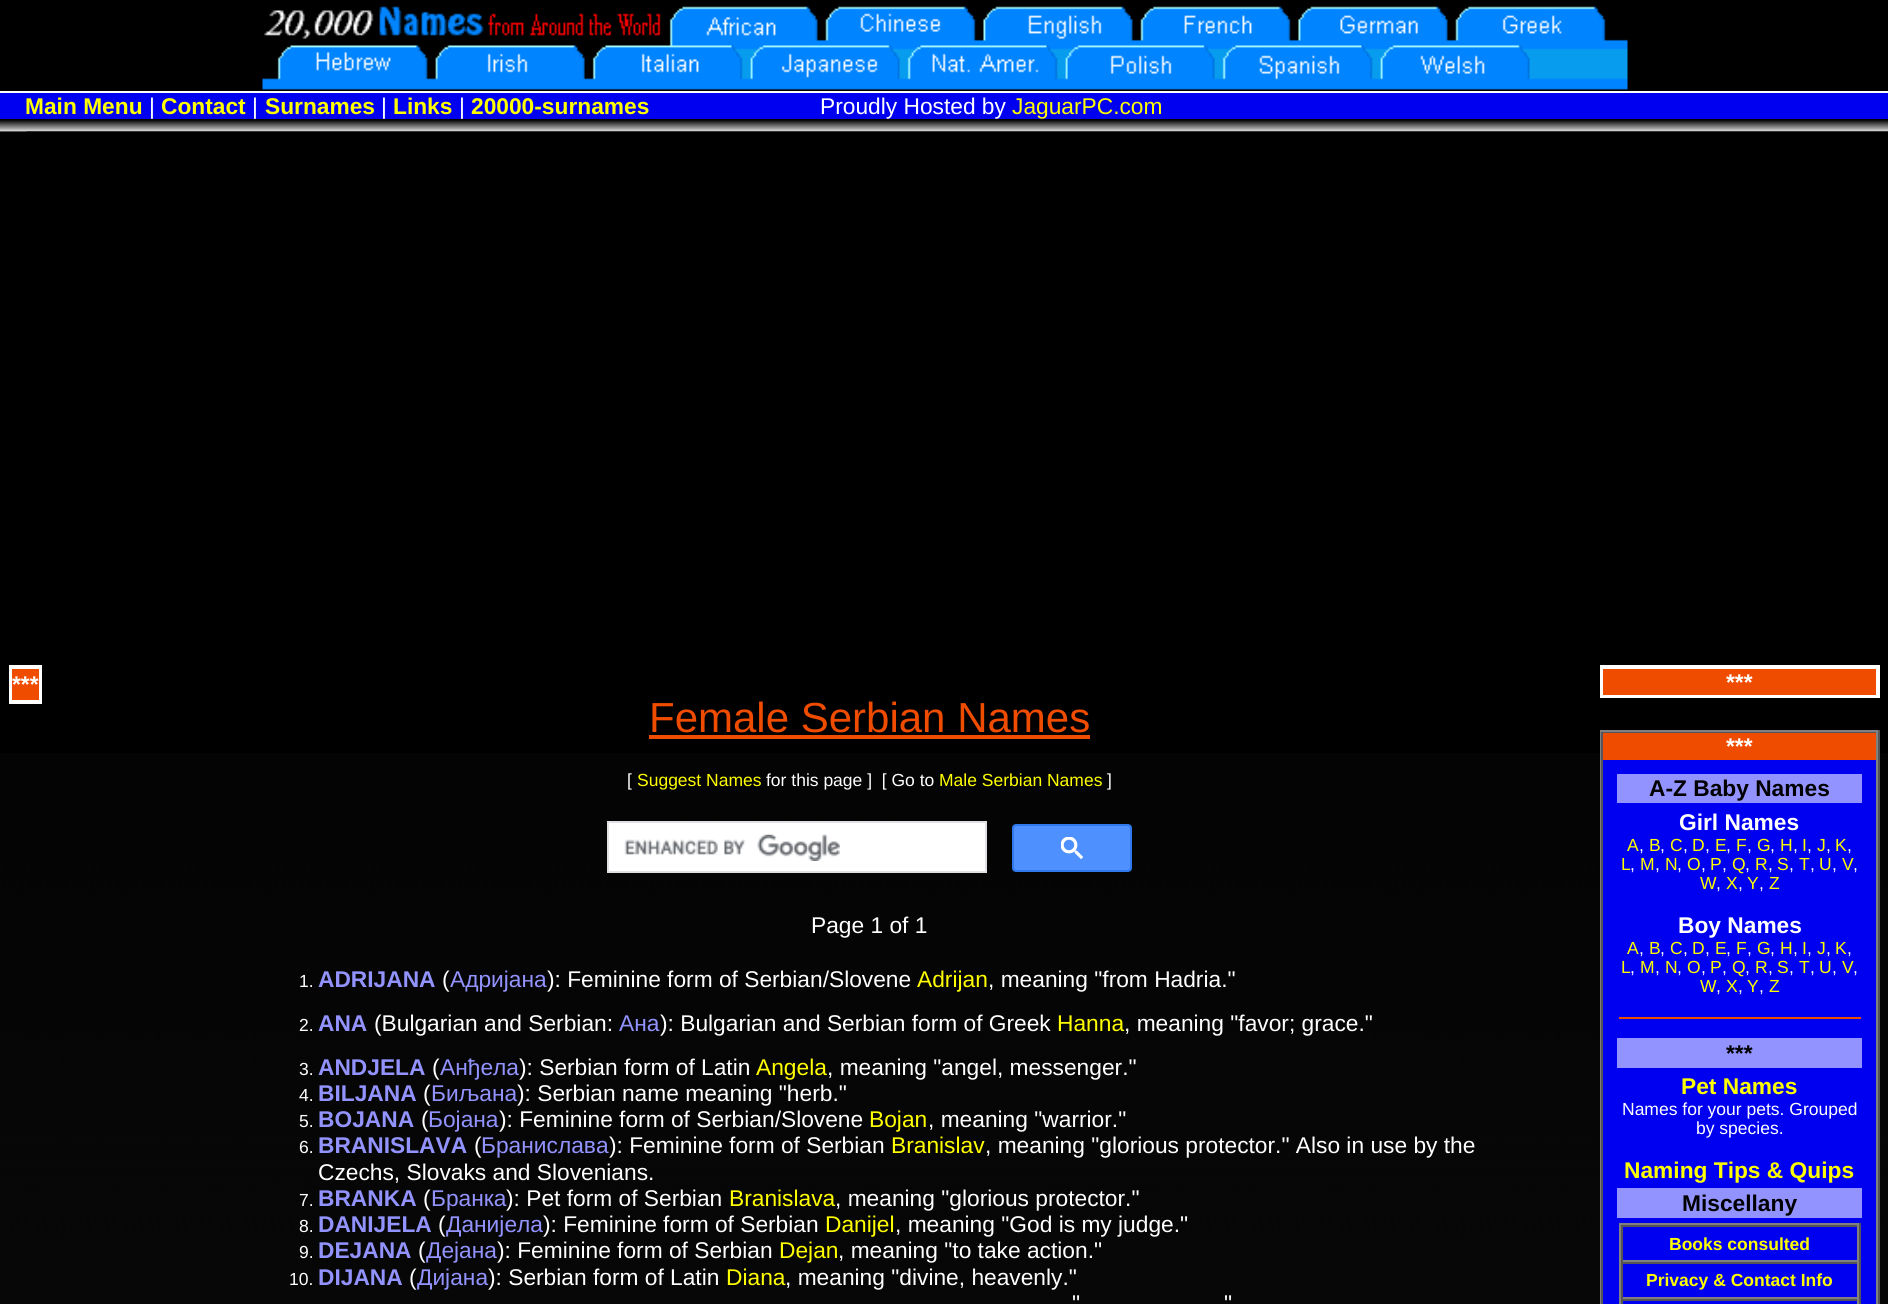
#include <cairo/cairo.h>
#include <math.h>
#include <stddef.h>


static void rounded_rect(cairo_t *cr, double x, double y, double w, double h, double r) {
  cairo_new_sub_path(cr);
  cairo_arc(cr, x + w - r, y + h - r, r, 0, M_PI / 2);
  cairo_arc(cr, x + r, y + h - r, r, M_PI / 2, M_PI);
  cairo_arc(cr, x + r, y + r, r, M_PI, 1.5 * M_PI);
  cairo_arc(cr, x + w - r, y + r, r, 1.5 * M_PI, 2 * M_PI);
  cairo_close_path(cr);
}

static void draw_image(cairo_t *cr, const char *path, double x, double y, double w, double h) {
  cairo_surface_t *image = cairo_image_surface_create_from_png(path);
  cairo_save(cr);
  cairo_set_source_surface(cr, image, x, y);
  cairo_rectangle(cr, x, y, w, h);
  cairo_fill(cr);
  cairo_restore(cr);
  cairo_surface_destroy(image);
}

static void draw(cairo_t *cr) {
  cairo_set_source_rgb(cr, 0, 0, 0);
  cairo_paint(cr);
  draw_image(cr, "images/1.png", 0, 753, 1888, 551);
  draw_image(cr, "images/2.png", 262, 6, 1366, 84);
  cairo_set_source_rgb(cr, 1, 1, 1);
  cairo_rectangle(cr, 0, 91, 1888, 2);
  cairo_fill(cr);
  cairo_set_source_rgb(cr, 0, 0, 240 / 255.0);
  cairo_rectangle(cr, 0, 93, 1888, 26);
  cairo_fill(cr);
  draw_image(cr, "images/3.png", 0, 120, 1888, 12);
  draw_image(cr, "images/4.png", 0, 131, 27, 1);
  cairo_rectangle(cr, 10, 666, 31, 37);
  cairo_set_source_rgb(cr, 1, 1, 1);
  cairo_stroke(cr);
  cairo_rectangle(cr, 12, 668, 27, 33);
  cairo_stroke(cr);
  cairo_set_source_rgb(cr, 240 / 255.0, 76 / 255.0, 0);
  cairo_rectangle(cr, 12, 669, 27, 31);
  cairo_fill(cr);
  cairo_rectangle(cr, 1601, 666, 278, 31);
  cairo_set_source_rgb(cr, 1, 1, 1);
  cairo_stroke(cr);
  cairo_rectangle(cr, 1602, 668, 275, 28);
  cairo_stroke(cr);
  cairo_set_source_rgb(cr, 240 / 255.0, 76 / 255.0, 0);
  cairo_rectangle(cr, 1603, 669, 273, 26);
  cairo_fill(cr);
  cairo_set_source_rgb(cr, 128 / 255.0, 128 / 255.0, 128 / 255.0);
  cairo_rectangle(cr, 1600, 730, 280, 2);
  cairo_fill(cr);
  cairo_set_source_rgb(cr, 85 / 255.0, 85 / 255.0, 85 / 255.0);
  cairo_rectangle(cr, 1878, 730, 2, 574);
  cairo_fill(cr);
  cairo_set_source_rgb(cr, 128 / 255.0, 128 / 255.0, 128 / 255.0);
  cairo_rectangle(cr, 1600, 730, 2, 574);
  cairo_fill(cr);
  cairo_set_source_rgb(cr, 85 / 255.0, 85 / 255.0, 85 / 255.0);
  cairo_rectangle(cr, 1601, 732, 277, 1);
  cairo_fill(cr);
  cairo_set_source_rgb(cr, 128 / 255.0, 128 / 255.0, 128 / 255.0);
  cairo_rectangle(cr, 1876, 732, 2, 572);
  cairo_fill(cr);
  cairo_set_source_rgb(cr, 85 / 255.0, 85 / 255.0, 85 / 255.0);
  cairo_rectangle(cr, 1601, 732, 2, 572);
  cairo_fill(cr);
  cairo_set_source_rgb(cr, 240 / 255.0, 76 / 255.0, 0);
  cairo_rectangle(cr, 1603, 733, 273, 27);
  cairo_fill(cr);
  cairo_set_source_rgb(cr, 0, 0, 240 / 255.0);
  cairo_rectangle(cr, 1603, 760, 273, 544);
  cairo_fill(cr);
  cairo_set_source_rgb(cr, 147 / 255.0, 147 / 255.0, 1);
  cairo_rectangle(cr, 1617, 774, 245, 29);
  cairo_fill(cr);
  cairo_set_source_rgb(cr, 240 / 255.0, 76 / 255.0, 0);
  cairo_rectangle(cr, 1619, 1017, 242, 2);
  cairo_fill(cr);
  cairo_set_source_rgb(cr, 147 / 255.0, 147 / 255.0, 1);
  cairo_rectangle(cr, 1617, 1038, 245, 30);
  cairo_fill(cr);
  cairo_rectangle(cr, 1617, 1188, 245, 30);
  cairo_fill(cr);
  cairo_set_source_rgb(cr, 128 / 255.0, 128 / 255.0, 128 / 255.0);
  cairo_rectangle(cr, 1619, 1223, 241, 2);
  cairo_fill(cr);
  cairo_set_source_rgb(cr, 85 / 255.0, 85 / 255.0, 85 / 255.0);
  cairo_rectangle(cr, 1859, 1223, 2, 81);
  cairo_fill(cr);
  cairo_set_source_rgb(cr, 128 / 255.0, 128 / 255.0, 128 / 255.0);
  cairo_rectangle(cr, 1619, 1223, 2, 81);
  cairo_fill(cr);
  cairo_set_source_rgb(cr, 85 / 255.0, 85 / 255.0, 85 / 255.0);
  cairo_rectangle(cr, 1621, 1225, 238, 2);
  cairo_fill(cr);
  cairo_set_source_rgb(cr, 128 / 255.0, 128 / 255.0, 128 / 255.0);
  cairo_rectangle(cr, 1857, 1225, 2, 37);
  cairo_fill(cr);
  cairo_rectangle(cr, 1621, 1260, 238, 2);
  cairo_fill(cr);
  cairo_set_source_rgb(cr, 85 / 255.0, 85 / 255.0, 85 / 255.0);
  cairo_rectangle(cr, 1621, 1225, 2, 37);
  cairo_fill(cr);
  cairo_rectangle(cr, 1621, 1262, 238, 2);
  cairo_fill(cr);
  cairo_set_source_rgb(cr, 128 / 255.0, 128 / 255.0, 128 / 255.0);
  cairo_rectangle(cr, 1857, 1262, 2, 37);
  cairo_fill(cr);
  cairo_rectangle(cr, 1621, 1297, 238, 2);
  cairo_fill(cr);
  cairo_set_source_rgb(cr, 85 / 255.0, 85 / 255.0, 85 / 255.0);
  cairo_rectangle(cr, 1621, 1262, 2, 37);
  cairo_fill(cr);
  cairo_rectangle(cr, 1621, 1299, 238, 2);
  cairo_fill(cr);
  cairo_set_source_rgb(cr, 128 / 255.0, 128 / 255.0, 128 / 255.0);
  cairo_rectangle(cr, 1857, 1299, 2, 5);
  cairo_fill(cr);
  cairo_set_source_rgb(cr, 85 / 255.0, 85 / 255.0, 85 / 255.0);
  cairo_rectangle(cr, 1621, 1299, 2, 5);
  cairo_fill(cr);
  cairo_set_source_rgb(cr, 240 / 255.0, 76 / 255.0, 0);
  cairo_rectangle(cr, 649, 735, 441, 4);
  cairo_fill(cr);
  cairo_set_source_rgb(cr, 1, 1, 1);
  cairo_rectangle(cr, 608, 822, 378, 50);
  cairo_fill_preserve(cr);
  cairo_set_source_rgb(cr, 223 / 255.0, 225 / 255.0, 229 / 255.0);
  cairo_stroke(cr);
  draw_image(cr, "images/5.png", 624, 834, 216, 27);
  cairo_set_source_rgb(cr, 77 / 255.0, 144 / 255.0, 254 / 255.0);
  rounded_rect(cr, 1013, 825, 118, 46, 3);
  cairo_fill_preserve(cr);
  cairo_set_source_rgb(cr, 48 / 255.0, 121 / 255.0, 237 / 255.0);
  cairo_stroke(cr);
  draw_image(cr, "images/6.png", 1061, 837, 22, 22);
  cairo_select_font_face(cr, "Liberation Sans", CAIRO_FONT_SLANT_NORMAL, CAIRO_FONT_WEIGHT_BOLD);
  cairo_set_font_size(cr, 22.75);
  cairo_set_source_rgb(cr, 1, 1, 0);
  cairo_move_to(cr, 25, 114);
  cairo_show_text(cr, "Main Menu");
  cairo_select_font_face(cr, "Liberation Sans", CAIRO_FONT_SLANT_NORMAL, CAIRO_FONT_WEIGHT_NORMAL);
  cairo_set_source_rgb(cr, 1, 1, 1);
  cairo_move_to(cr, 149, 114);
  cairo_show_text(cr, "|");
  cairo_select_font_face(cr, "Liberation Sans", CAIRO_FONT_SLANT_NORMAL, CAIRO_FONT_WEIGHT_BOLD);
  cairo_set_source_rgb(cr, 1, 1, 0);
  cairo_move_to(cr, 161, 114);
  cairo_show_text(cr, "Contact");
  cairo_select_font_face(cr, "Liberation Sans", CAIRO_FONT_SLANT_NORMAL, CAIRO_FONT_WEIGHT_NORMAL);
  cairo_set_source_rgb(cr, 1, 1, 1);
  cairo_move_to(cr, 252, 114);
  cairo_show_text(cr, "|");
  cairo_select_font_face(cr, "Liberation Sans", CAIRO_FONT_SLANT_NORMAL, CAIRO_FONT_WEIGHT_BOLD);
  cairo_set_source_rgb(cr, 1, 1, 0);
  cairo_move_to(cr, 265, 114);
  cairo_show_text(cr, "Surnames");
  cairo_select_font_face(cr, "Liberation Sans", CAIRO_FONT_SLANT_NORMAL, CAIRO_FONT_WEIGHT_NORMAL);
  cairo_set_source_rgb(cr, 1, 1, 1);
  cairo_move_to(cr, 381, 114);
  cairo_show_text(cr, "|");
  cairo_select_font_face(cr, "Liberation Sans", CAIRO_FONT_SLANT_NORMAL, CAIRO_FONT_WEIGHT_BOLD);
  cairo_set_source_rgb(cr, 1, 1, 0);
  cairo_move_to(cr, 393, 114);
  cairo_show_text(cr, "Links");
  cairo_select_font_face(cr, "Liberation Sans", CAIRO_FONT_SLANT_NORMAL, CAIRO_FONT_WEIGHT_NORMAL);
  cairo_set_source_rgb(cr, 1, 1, 1);
  cairo_move_to(cr, 459, 114);
  cairo_show_text(cr, "|");
  cairo_select_font_face(cr, "Liberation Sans", CAIRO_FONT_SLANT_NORMAL, CAIRO_FONT_WEIGHT_BOLD);
  cairo_set_source_rgb(cr, 1, 1, 0);
  cairo_move_to(cr, 471, 114);
  cairo_show_text(cr, "20000-surnames");
  cairo_select_font_face(cr, "Liberation Sans", CAIRO_FONT_SLANT_NORMAL, CAIRO_FONT_WEIGHT_NORMAL);
  cairo_set_source_rgb(cr, 1, 1, 1);
  cairo_move_to(cr, 820, 114);
  cairo_show_text(cr, "Proudly Hosted by");
  cairo_set_source_rgb(cr, 1, 1, 0);
  cairo_move_to(cr, 1012, 114);
  cairo_show_text(cr, "JaguarPC.com");
  cairo_select_font_face(cr, "Liberation Sans", CAIRO_FONT_SLANT_NORMAL, CAIRO_FONT_WEIGHT_BOLD);
  cairo_set_source_rgb(cr, 1, 1, 1);
  cairo_move_to(cr, 12, 692);
  cairo_show_text(cr, "***");
  cairo_move_to(cr, 1726, 690);
  cairo_show_text(cr, "***");
  cairo_move_to(cr, 1726, 754);
  cairo_show_text(cr, "***");
  cairo_set_source_rgb(cr, 0, 0, 0);
  cairo_move_to(cr, 1649, 796);
  cairo_show_text(cr, "A-Z Baby Names");
  cairo_set_source_rgb(cr, 1, 1, 1);
  cairo_move_to(cr, 1679, 830);
  cairo_show_text(cr, "Girl Names");
  cairo_select_font_face(cr, "Liberation Sans", CAIRO_FONT_SLANT_NORMAL, CAIRO_FONT_WEIGHT_NORMAL);
  cairo_set_font_size(cr, 17.5);
  cairo_set_source_rgb(cr, 1, 1, 0);
  cairo_move_to(cr, 1627, 851);
  cairo_show_text(cr, "A");
  cairo_move_to(cr, 1649, 851);
  cairo_show_text(cr, "B");
  cairo_move_to(cr, 1670, 851);
  cairo_show_text(cr, "C");
  cairo_move_to(cr, 1692, 851);
  cairo_show_text(cr, "D");
  cairo_move_to(cr, 1715, 851);
  cairo_show_text(cr, "E");
  cairo_move_to(cr, 1736, 851);
  cairo_show_text(cr, "F");
  cairo_move_to(cr, 1757, 851);
  cairo_show_text(cr, "G");
  cairo_move_to(cr, 1780, 851);
  cairo_show_text(cr, "H");
  cairo_move_to(cr, 1802, 851);
  cairo_show_text(cr, "I");
  cairo_move_to(cr, 1817, 851);
  cairo_show_text(cr, "J");
  cairo_move_to(cr, 1835, 851);
  cairo_show_text(cr, "K");
  cairo_set_source_rgb(cr, 1, 1, 1);
  cairo_move_to(cr, 1639, 851);
  cairo_show_text(cr, ",");
  cairo_move_to(cr, 1660, 851);
  cairo_show_text(cr, ",");
  cairo_move_to(cr, 1683, 851);
  cairo_show_text(cr, ",");
  cairo_move_to(cr, 1705, 851);
  cairo_show_text(cr, ",");
  cairo_move_to(cr, 1726, 851);
  cairo_show_text(cr, ",");
  cairo_move_to(cr, 1747, 851);
  cairo_show_text(cr, ",");
  cairo_move_to(cr, 1770, 851);
  cairo_show_text(cr, ",");
  cairo_move_to(cr, 1793, 851);
  cairo_show_text(cr, ",");
  cairo_move_to(cr, 1807, 851);
  cairo_show_text(cr, ",");
  cairo_move_to(cr, 1826, 851);
  cairo_show_text(cr, ",");
  cairo_move_to(cr, 1847, 851);
  cairo_show_text(cr, ",");
  cairo_set_source_rgb(cr, 1, 1, 0);
  cairo_move_to(cr, 1621, 870);
  cairo_show_text(cr, "L");
  cairo_move_to(cr, 1640, 870);
  cairo_show_text(cr, "M");
  cairo_move_to(cr, 1665, 870);
  cairo_show_text(cr, "N");
  cairo_move_to(cr, 1687, 870);
  cairo_show_text(cr, "O");
  cairo_move_to(cr, 1710, 870);
  cairo_show_text(cr, "P");
  cairo_move_to(cr, 1732, 870);
  cairo_show_text(cr, "Q");
  cairo_move_to(cr, 1755, 870);
  cairo_show_text(cr, "R");
  cairo_move_to(cr, 1777, 870);
  cairo_show_text(cr, "S");
  cairo_move_to(cr, 1799, 870);
  cairo_show_text(cr, "T");
  cairo_move_to(cr, 1819, 870);
  cairo_show_text(cr, "U");
  cairo_move_to(cr, 1842, 870);
  cairo_show_text(cr, "V");
  cairo_set_source_rgb(cr, 1, 1, 1);
  cairo_move_to(cr, 1630, 870);
  cairo_show_text(cr, ",");
  cairo_move_to(cr, 1655, 870);
  cairo_show_text(cr, ",");
  cairo_move_to(cr, 1677, 870);
  cairo_show_text(cr, ",");
  cairo_move_to(cr, 1701, 870);
  cairo_show_text(cr, ",");
  cairo_move_to(cr, 1722, 870);
  cairo_show_text(cr, ",");
  cairo_move_to(cr, 1745, 870);
  cairo_show_text(cr, ",");
  cairo_move_to(cr, 1768, 870);
  cairo_show_text(cr, ",");
  cairo_move_to(cr, 1789, 870);
  cairo_show_text(cr, ",");
  cairo_move_to(cr, 1810, 870);
  cairo_show_text(cr, ",");
  cairo_move_to(cr, 1832, 870);
  cairo_show_text(cr, ",");
  cairo_move_to(cr, 1853, 870);
  cairo_show_text(cr, ",");
  cairo_set_source_rgb(cr, 1, 1, 0);
  cairo_move_to(cr, 1700, 889);
  cairo_show_text(cr, "W");
  cairo_move_to(cr, 1726, 889);
  cairo_show_text(cr, "X");
  cairo_move_to(cr, 1747, 889);
  cairo_show_text(cr, "Y");
  cairo_move_to(cr, 1769, 889);
  cairo_show_text(cr, "Z");
  cairo_set_source_rgb(cr, 1, 1, 1);
  cairo_move_to(cr, 1716, 889);
  cairo_show_text(cr, ",");
  cairo_move_to(cr, 1738, 889);
  cairo_show_text(cr, ",");
  cairo_move_to(cr, 1759, 889);
  cairo_show_text(cr, ",");
  cairo_select_font_face(cr, "Liberation Sans", CAIRO_FONT_SLANT_NORMAL, CAIRO_FONT_WEIGHT_BOLD);
  cairo_set_font_size(cr, 22.75);
  cairo_move_to(cr, 1678, 933);
  cairo_show_text(cr, "Boy Names");
  cairo_select_font_face(cr, "Liberation Sans", CAIRO_FONT_SLANT_NORMAL, CAIRO_FONT_WEIGHT_NORMAL);
  cairo_set_font_size(cr, 17.5);
  cairo_set_source_rgb(cr, 1, 1, 0);
  cairo_move_to(cr, 1627, 954);
  cairo_show_text(cr, "A");
  cairo_move_to(cr, 1649, 954);
  cairo_show_text(cr, "B");
  cairo_move_to(cr, 1670, 954);
  cairo_show_text(cr, "C");
  cairo_move_to(cr, 1692, 954);
  cairo_show_text(cr, "D");
  cairo_move_to(cr, 1715, 954);
  cairo_show_text(cr, "E");
  cairo_move_to(cr, 1736, 954);
  cairo_show_text(cr, "F");
  cairo_move_to(cr, 1757, 954);
  cairo_show_text(cr, "G");
  cairo_move_to(cr, 1780, 954);
  cairo_show_text(cr, "H");
  cairo_move_to(cr, 1802, 954);
  cairo_show_text(cr, "I");
  cairo_move_to(cr, 1817, 954);
  cairo_show_text(cr, "J");
  cairo_move_to(cr, 1835, 954);
  cairo_show_text(cr, "K");
  cairo_set_source_rgb(cr, 1, 1, 1);
  cairo_move_to(cr, 1639, 954);
  cairo_show_text(cr, ",");
  cairo_move_to(cr, 1660, 954);
  cairo_show_text(cr, ",");
  cairo_move_to(cr, 1683, 954);
  cairo_show_text(cr, ",");
  cairo_move_to(cr, 1705, 954);
  cairo_show_text(cr, ",");
  cairo_move_to(cr, 1726, 954);
  cairo_show_text(cr, ",");
  cairo_move_to(cr, 1747, 954);
  cairo_show_text(cr, ",");
  cairo_move_to(cr, 1770, 954);
  cairo_show_text(cr, ",");
  cairo_move_to(cr, 1793, 954);
  cairo_show_text(cr, ",");
  cairo_move_to(cr, 1807, 954);
  cairo_show_text(cr, ",");
  cairo_move_to(cr, 1826, 954);
  cairo_show_text(cr, ",");
  cairo_move_to(cr, 1847, 954);
  cairo_show_text(cr, ",");
  cairo_set_source_rgb(cr, 1, 1, 0);
  cairo_move_to(cr, 1621, 973);
  cairo_show_text(cr, "L");
  cairo_move_to(cr, 1640, 973);
  cairo_show_text(cr, "M");
  cairo_move_to(cr, 1665, 973);
  cairo_show_text(cr, "N");
  cairo_move_to(cr, 1687, 973);
  cairo_show_text(cr, "O");
  cairo_move_to(cr, 1710, 973);
  cairo_show_text(cr, "P");
  cairo_move_to(cr, 1732, 973);
  cairo_show_text(cr, "Q");
  cairo_move_to(cr, 1755, 973);
  cairo_show_text(cr, "R");
  cairo_move_to(cr, 1777, 973);
  cairo_show_text(cr, "S");
  cairo_move_to(cr, 1799, 973);
  cairo_show_text(cr, "T");
  cairo_move_to(cr, 1819, 973);
  cairo_show_text(cr, "U");
  cairo_move_to(cr, 1842, 973);
  cairo_show_text(cr, "V");
  cairo_set_source_rgb(cr, 1, 1, 1);
  cairo_move_to(cr, 1630, 973);
  cairo_show_text(cr, ",");
  cairo_move_to(cr, 1655, 973);
  cairo_show_text(cr, ",");
  cairo_move_to(cr, 1677, 973);
  cairo_show_text(cr, ",");
  cairo_move_to(cr, 1701, 973);
  cairo_show_text(cr, ",");
  cairo_move_to(cr, 1722, 973);
  cairo_show_text(cr, ",");
  cairo_move_to(cr, 1745, 973);
  cairo_show_text(cr, ",");
  cairo_move_to(cr, 1768, 973);
  cairo_show_text(cr, ",");
  cairo_move_to(cr, 1789, 973);
  cairo_show_text(cr, ",");
  cairo_move_to(cr, 1810, 973);
  cairo_show_text(cr, ",");
  cairo_move_to(cr, 1832, 973);
  cairo_show_text(cr, ",");
  cairo_move_to(cr, 1853, 973);
  cairo_show_text(cr, ",");
  cairo_set_source_rgb(cr, 1, 1, 0);
  cairo_move_to(cr, 1700, 992);
  cairo_show_text(cr, "W");
  cairo_move_to(cr, 1726, 992);
  cairo_show_text(cr, "X");
  cairo_move_to(cr, 1747, 992);
  cairo_show_text(cr, "Y");
  cairo_move_to(cr, 1769, 992);
  cairo_show_text(cr, "Z");
  cairo_set_source_rgb(cr, 1, 1, 1);
  cairo_move_to(cr, 1716, 992);
  cairo_show_text(cr, ",");
  cairo_move_to(cr, 1738, 992);
  cairo_show_text(cr, ",");
  cairo_move_to(cr, 1759, 992);
  cairo_show_text(cr, ",");
  cairo_select_font_face(cr, "Liberation Sans", CAIRO_FONT_SLANT_NORMAL, CAIRO_FONT_WEIGHT_BOLD);
  cairo_set_font_size(cr, 22.75);
  cairo_set_source_rgb(cr, 0, 0, 0);
  cairo_move_to(cr, 1726, 1061);
  cairo_show_text(cr, "***");
  cairo_set_source_rgb(cr, 1, 1, 0);
  cairo_move_to(cr, 1681, 1094);
  cairo_show_text(cr, "Pet Names");
  cairo_select_font_face(cr, "Liberation Sans", CAIRO_FONT_SLANT_NORMAL, CAIRO_FONT_WEIGHT_NORMAL);
  cairo_set_font_size(cr, 17.5);
  cairo_set_source_rgb(cr, 1, 1, 1);
  cairo_move_to(cr, 1622, 1115);
  cairo_show_text(cr, "Names for your pets. Grouped");
  cairo_move_to(cr, 1696, 1134);
  cairo_show_text(cr, "by species.");
  cairo_select_font_face(cr, "Liberation Sans", CAIRO_FONT_SLANT_NORMAL, CAIRO_FONT_WEIGHT_BOLD);
  cairo_set_font_size(cr, 22.75);
  cairo_set_source_rgb(cr, 1, 1, 0);
  cairo_move_to(cr, 1624, 1178);
  cairo_show_text(cr, "Naming Tips & Quips");
  cairo_set_source_rgb(cr, 0, 0, 0);
  cairo_move_to(cr, 1682, 1211);
  cairo_show_text(cr, "Miscellany");
  cairo_set_font_size(cr, 17.5);
  cairo_set_source_rgb(cr, 1, 1, 0);
  cairo_move_to(cr, 1669, 1250);
  cairo_show_text(cr, "Books consulted");
  cairo_move_to(cr, 1646, 1286);
  cairo_show_text(cr, "Privacy & Contact Info");
  cairo_select_font_face(cr, "Liberation Sans", CAIRO_FONT_SLANT_NORMAL, CAIRO_FONT_WEIGHT_NORMAL);
  cairo_set_font_size(cr, 42);
  cairo_set_source_rgb(cr, 240 / 255.0, 76 / 255.0, 0);
  cairo_move_to(cr, 649, 732);
  cairo_show_text(cr, "Female Serbian Names");
  cairo_set_font_size(cr, 17.5);
  cairo_set_source_rgb(cr, 1, 1, 1);
  cairo_move_to(cr, 627, 786);
  cairo_show_text(cr, "[");
  cairo_set_source_rgb(cr, 1, 1, 0);
  cairo_move_to(cr, 637, 786);
  cairo_show_text(cr, "Suggest Names");
  cairo_set_source_rgb(cr, 1, 1, 1);
  cairo_move_to(cr, 766, 786);
  cairo_show_text(cr, "for this page ]  [ Go to");
  cairo_set_source_rgb(cr, 1, 1, 0);
  cairo_move_to(cr, 939, 786);
  cairo_show_text(cr, "Male Serbian Names");
  cairo_set_source_rgb(cr, 1, 1, 1);
  cairo_move_to(cr, 1107, 786);
  cairo_show_text(cr, "]");
  cairo_set_font_size(cr, 22.75);
  cairo_move_to(cr, 811, 933);
  cairo_show_text(cr, "Page 1 of 1");
  cairo_set_font_size(cr, 17.5);
  cairo_move_to(cr, 299, 987);
  cairo_show_text(cr, "1.");
  cairo_select_font_face(cr, "Liberation Sans", CAIRO_FONT_SLANT_NORMAL, CAIRO_FONT_WEIGHT_BOLD);
  cairo_set_font_size(cr, 22.75);
  cairo_set_source_rgb(cr, 147 / 255.0, 147 / 255.0, 1);
  cairo_move_to(cr, 318, 987);
  cairo_show_text(cr, "ADRIJANA");
  cairo_select_font_face(cr, "Liberation Sans", CAIRO_FONT_SLANT_NORMAL, CAIRO_FONT_WEIGHT_NORMAL);
  cairo_set_source_rgb(cr, 1, 1, 1);
  cairo_move_to(cr, 442, 987);
  cairo_show_text(cr, "(");
  cairo_set_source_rgb(cr, 147 / 255.0, 147 / 255.0, 1);
  cairo_move_to(cr, 450, 987);
  cairo_show_text(cr, "Адријана");
  cairo_set_source_rgb(cr, 1, 1, 1);
  cairo_move_to(cr, 547, 987);
  cairo_show_text(cr, "): Feminine form of Serbian/Slovene");
  cairo_set_source_rgb(cr, 1, 1, 0);
  cairo_move_to(cr, 917, 987);
  cairo_show_text(cr, "Adrijan");
  cairo_set_source_rgb(cr, 1, 1, 1);
  cairo_move_to(cr, 988, 987);
  cairo_show_text(cr, ", meaning \"from Hadria.\"");
  cairo_set_font_size(cr, 17.5);
  cairo_move_to(cr, 299, 1031);
  cairo_show_text(cr, "2.");
  cairo_select_font_face(cr, "Liberation Sans", CAIRO_FONT_SLANT_NORMAL, CAIRO_FONT_WEIGHT_BOLD);
  cairo_set_font_size(cr, 22.75);
  cairo_set_source_rgb(cr, 147 / 255.0, 147 / 255.0, 1);
  cairo_move_to(cr, 318, 1031);
  cairo_show_text(cr, "ANA");
  cairo_select_font_face(cr, "Liberation Sans", CAIRO_FONT_SLANT_NORMAL, CAIRO_FONT_WEIGHT_NORMAL);
  cairo_set_source_rgb(cr, 1, 1, 1);
  cairo_move_to(cr, 374, 1031);
  cairo_show_text(cr, "(Bulgarian and Serbian:");
  cairo_set_source_rgb(cr, 147 / 255.0, 147 / 255.0, 1);
  cairo_move_to(cr, 619, 1031);
  cairo_show_text(cr, "Ана");
  cairo_set_source_rgb(cr, 1, 1, 1);
  cairo_move_to(cr, 660, 1031);
  cairo_show_text(cr, "): Bulgarian and Serbian form of Greek");
  cairo_set_source_rgb(cr, 1, 1, 0);
  cairo_move_to(cr, 1057, 1031);
  cairo_show_text(cr, "Hanna");
  cairo_set_source_rgb(cr, 1, 1, 1);
  cairo_move_to(cr, 1124, 1031);
  cairo_show_text(cr, ", meaning \"favor; grace.\"");
  cairo_set_font_size(cr, 17.5);
  cairo_move_to(cr, 299, 1075);
  cairo_show_text(cr, "3.");
  cairo_select_font_face(cr, "Liberation Sans", CAIRO_FONT_SLANT_NORMAL, CAIRO_FONT_WEIGHT_BOLD);
  cairo_set_font_size(cr, 22.75);
  cairo_set_source_rgb(cr, 147 / 255.0, 147 / 255.0, 1);
  cairo_move_to(cr, 318, 1075);
  cairo_show_text(cr, "ANDJELA");
  cairo_select_font_face(cr, "Liberation Sans", CAIRO_FONT_SLANT_NORMAL, CAIRO_FONT_WEIGHT_NORMAL);
  cairo_set_source_rgb(cr, 1, 1, 1);
  cairo_move_to(cr, 432, 1075);
  cairo_show_text(cr, "(");
  cairo_set_source_rgb(cr, 147 / 255.0, 147 / 255.0, 1);
  cairo_move_to(cr, 440, 1075);
  cairo_show_text(cr, "Анђела");
  cairo_set_source_rgb(cr, 1, 1, 1);
  cairo_move_to(cr, 519, 1075);
  cairo_show_text(cr, "): Serbian form of Latin");
  cairo_set_source_rgb(cr, 1, 1, 0);
  cairo_move_to(cr, 756, 1075);
  cairo_show_text(cr, "Angela");
  cairo_set_source_rgb(cr, 1, 1, 1);
  cairo_move_to(cr, 827, 1075);
  cairo_show_text(cr, ", meaning \"angel, messenger.\"");
  cairo_set_font_size(cr, 17.5);
  cairo_move_to(cr, 299, 1101);
  cairo_show_text(cr, "4.");
  cairo_select_font_face(cr, "Liberation Sans", CAIRO_FONT_SLANT_NORMAL, CAIRO_FONT_WEIGHT_BOLD);
  cairo_set_font_size(cr, 22.75);
  cairo_set_source_rgb(cr, 147 / 255.0, 147 / 255.0, 1);
  cairo_move_to(cr, 318, 1101);
  cairo_show_text(cr, "BILJANA");
  cairo_select_font_face(cr, "Liberation Sans", CAIRO_FONT_SLANT_NORMAL, CAIRO_FONT_WEIGHT_NORMAL);
  cairo_set_source_rgb(cr, 1, 1, 1);
  cairo_move_to(cr, 423, 1101);
  cairo_show_text(cr, "(");
  cairo_set_source_rgb(cr, 147 / 255.0, 147 / 255.0, 1);
  cairo_move_to(cr, 431, 1101);
  cairo_show_text(cr, "Биљана");
  cairo_set_source_rgb(cr, 1, 1, 1);
  cairo_move_to(cr, 517, 1101);
  cairo_show_text(cr, "): Serbian name meaning \"herb.\"");
  cairo_set_font_size(cr, 17.5);
  cairo_move_to(cr, 299, 1127);
  cairo_show_text(cr, "5.");
  cairo_select_font_face(cr, "Liberation Sans", CAIRO_FONT_SLANT_NORMAL, CAIRO_FONT_WEIGHT_BOLD);
  cairo_set_font_size(cr, 22.75);
  cairo_set_source_rgb(cr, 147 / 255.0, 147 / 255.0, 1);
  cairo_move_to(cr, 318, 1127);
  cairo_show_text(cr, "BOJANA");
  cairo_select_font_face(cr, "Liberation Sans", CAIRO_FONT_SLANT_NORMAL, CAIRO_FONT_WEIGHT_NORMAL);
  cairo_set_source_rgb(cr, 1, 1, 1);
  cairo_move_to(cr, 421, 1127);
  cairo_show_text(cr, "(");
  cairo_set_source_rgb(cr, 147 / 255.0, 147 / 255.0, 1);
  cairo_move_to(cr, 428, 1127);
  cairo_show_text(cr, "Боjaна");
  cairo_set_source_rgb(cr, 1, 1, 1);
  cairo_move_to(cr, 499, 1127);
  cairo_show_text(cr, "): Feminine form of Serbian/Slovene");
  cairo_set_source_rgb(cr, 1, 1, 0);
  cairo_move_to(cr, 869, 1127);
  cairo_show_text(cr, "Bojan");
  cairo_set_source_rgb(cr, 1, 1, 1);
  cairo_move_to(cr, 928, 1127);
  cairo_show_text(cr, ", meaning \"warrior.\"");
  cairo_set_font_size(cr, 17.5);
  cairo_move_to(cr, 299, 1153);
  cairo_show_text(cr, "6.");
  cairo_select_font_face(cr, "Liberation Sans", CAIRO_FONT_SLANT_NORMAL, CAIRO_FONT_WEIGHT_BOLD);
  cairo_set_font_size(cr, 22.75);
  cairo_set_source_rgb(cr, 147 / 255.0, 147 / 255.0, 1);
  cairo_move_to(cr, 318, 1153);
  cairo_show_text(cr, "BRANISLAVA");
  cairo_select_font_face(cr, "Liberation Sans", CAIRO_FONT_SLANT_NORMAL, CAIRO_FONT_WEIGHT_NORMAL);
  cairo_set_source_rgb(cr, 1, 1, 1);
  cairo_move_to(cr, 474, 1153);
  cairo_show_text(cr, "(");
  cairo_set_source_rgb(cr, 147 / 255.0, 147 / 255.0, 1);
  cairo_move_to(cr, 481, 1153);
  cairo_show_text(cr, "Бранислава");
  cairo_set_source_rgb(cr, 1, 1, 1);
  cairo_move_to(cr, 609, 1153);
  cairo_show_text(cr, "): Feminine form of Serbian");
  cairo_set_source_rgb(cr, 1, 1, 0);
  cairo_move_to(cr, 891, 1153);
  cairo_show_text(cr, "Branislav");
  cairo_set_source_rgb(cr, 1, 1, 1);
  cairo_move_to(cr, 985, 1153);
  cairo_show_text(cr, ", meaning \"glorious protector.\" Also in use by the");
  cairo_move_to(cr, 318, 1180);
  cairo_show_text(cr, "Czechs, Slovaks and Slovenians.");
  cairo_set_font_size(cr, 17.5);
  cairo_move_to(cr, 299, 1206);
  cairo_show_text(cr, "7.");
  cairo_select_font_face(cr, "Liberation Sans", CAIRO_FONT_SLANT_NORMAL, CAIRO_FONT_WEIGHT_BOLD);
  cairo_set_font_size(cr, 22.75);
  cairo_set_source_rgb(cr, 147 / 255.0, 147 / 255.0, 1);
  cairo_move_to(cr, 318, 1206);
  cairo_show_text(cr, "BRANKA");
  cairo_select_font_face(cr, "Liberation Sans", CAIRO_FONT_SLANT_NORMAL, CAIRO_FONT_WEIGHT_NORMAL);
  cairo_set_source_rgb(cr, 1, 1, 1);
  cairo_move_to(cr, 423, 1206);
  cairo_show_text(cr, "(");
  cairo_set_source_rgb(cr, 147 / 255.0, 147 / 255.0, 1);
  cairo_move_to(cr, 431, 1206);
  cairo_show_text(cr, "Бранка");
  cairo_set_source_rgb(cr, 1, 1, 1);
  cairo_move_to(cr, 506, 1206);
  cairo_show_text(cr, "): Pet form of Serbian");
  cairo_set_source_rgb(cr, 1, 1, 0);
  cairo_move_to(cr, 729, 1206);
  cairo_show_text(cr, "Branislava");
  cairo_set_source_rgb(cr, 1, 1, 1);
  cairo_move_to(cr, 835, 1206);
  cairo_show_text(cr, ", meaning \"glorious protector.\"");
  cairo_set_font_size(cr, 17.5);
  cairo_move_to(cr, 299, 1232);
  cairo_show_text(cr, "8.");
  cairo_select_font_face(cr, "Liberation Sans", CAIRO_FONT_SLANT_NORMAL, CAIRO_FONT_WEIGHT_BOLD);
  cairo_set_font_size(cr, 22.75);
  cairo_set_source_rgb(cr, 147 / 255.0, 147 / 255.0, 1);
  cairo_move_to(cr, 318, 1232);
  cairo_show_text(cr, "DANIJELA");
  cairo_select_font_face(cr, "Liberation Sans", CAIRO_FONT_SLANT_NORMAL, CAIRO_FONT_WEIGHT_NORMAL);
  cairo_set_source_rgb(cr, 1, 1, 1);
  cairo_move_to(cr, 438, 1232);
  cairo_show_text(cr, "(");
  cairo_set_source_rgb(cr, 147 / 255.0, 147 / 255.0, 1);
  cairo_move_to(cr, 446, 1232);
  cairo_show_text(cr, "Данијела");
  cairo_set_source_rgb(cr, 1, 1, 1);
  cairo_move_to(cr, 543, 1232);
  cairo_show_text(cr, "): Feminine form of Serbian");
  cairo_set_source_rgb(cr, 1, 1, 0);
  cairo_move_to(cr, 825, 1232);
  cairo_show_text(cr, "Danijel");
  cairo_set_source_rgb(cr, 1, 1, 1);
  cairo_move_to(cr, 895, 1232);
  cairo_show_text(cr, ", meaning \"God is my judge.\"");
  cairo_set_font_size(cr, 17.5);
  cairo_move_to(cr, 299, 1258);
  cairo_show_text(cr, "9.");
  cairo_select_font_face(cr, "Liberation Sans", CAIRO_FONT_SLANT_NORMAL, CAIRO_FONT_WEIGHT_BOLD);
  cairo_set_font_size(cr, 22.75);
  cairo_set_source_rgb(cr, 147 / 255.0, 147 / 255.0, 1);
  cairo_move_to(cr, 318, 1258);
  cairo_show_text(cr, "DEJANA");
  cairo_select_font_face(cr, "Liberation Sans", CAIRO_FONT_SLANT_NORMAL, CAIRO_FONT_WEIGHT_NORMAL);
  cairo_set_source_rgb(cr, 1, 1, 1);
  cairo_move_to(cr, 418, 1258);
  cairo_show_text(cr, "(");
  cairo_set_source_rgb(cr, 147 / 255.0, 147 / 255.0, 1);
  cairo_move_to(cr, 426, 1258);
  cairo_show_text(cr, "Дејана");
  cairo_set_source_rgb(cr, 1, 1, 1);
  cairo_move_to(cr, 497, 1258);
  cairo_show_text(cr, "): Feminine form of Serbian");
  cairo_set_source_rgb(cr, 1, 1, 0);
  cairo_move_to(cr, 779, 1258);
  cairo_show_text(cr, "Dejan");
  cairo_set_source_rgb(cr, 1, 1, 1);
  cairo_move_to(cr, 838, 1258);
  cairo_show_text(cr, ", meaning \"to take action.\"");
  cairo_set_font_size(cr, 17.5);
  cairo_move_to(cr, 289, 1285);
  cairo_show_text(cr, "10.");
  cairo_select_font_face(cr, "Liberation Sans", CAIRO_FONT_SLANT_NORMAL, CAIRO_FONT_WEIGHT_BOLD);
  cairo_set_font_size(cr, 22.75);
  cairo_set_source_rgb(cr, 147 / 255.0, 147 / 255.0, 1);
  cairo_move_to(cr, 318, 1285);
  cairo_show_text(cr, "DIJANA");
  cairo_select_font_face(cr, "Liberation Sans", CAIRO_FONT_SLANT_NORMAL, CAIRO_FONT_WEIGHT_NORMAL);
  cairo_set_source_rgb(cr, 1, 1, 1);
  cairo_move_to(cr, 409, 1285);
  cairo_show_text(cr, "(");
  cairo_set_source_rgb(cr, 147 / 255.0, 147 / 255.0, 1);
  cairo_move_to(cr, 417, 1285);
  cairo_show_text(cr, "Дијана");
  cairo_set_source_rgb(cr, 1, 1, 1);
  cairo_move_to(cr, 488, 1285);
  cairo_show_text(cr, "): Serbian form of Latin");
  cairo_set_source_rgb(cr, 1, 1, 0);
  cairo_move_to(cr, 726, 1285);
  cairo_show_text(cr, "Diana");
  cairo_set_source_rgb(cr, 1, 1, 1);
  cairo_move_to(cr, 785, 1285);
  cairo_show_text(cr, ", meaning \"divine, heavenly.\"");
  cairo_move_to(cr, 1072, 1311);
  cairo_show_text(cr, "\"");
  cairo_move_to(cr, 1224, 1311);
  cairo_show_text(cr, "\"");
}

int main(void) {
  cairo_surface_t *surface = cairo_image_surface_create(CAIRO_FORMAT_RGB24, 1888, 1304);
  cairo_t *cr = cairo_create(surface);
  cairo_font_options_t *options = cairo_font_options_create();
  cairo_font_options_set_hint_metrics(options, CAIRO_HINT_METRICS_OFF);
  cairo_font_options_set_hint_style(options, CAIRO_HINT_STYLE_NONE);
  cairo_set_font_options(cr, options);
  cairo_set_miter_limit(cr, 4);
  draw(cr);
  cairo_surface_write_to_png(surface, "out.png");
  cairo_font_options_destroy(options);
  cairo_destroy(cr);
  cairo_surface_destroy(surface);
  return 0;
}
